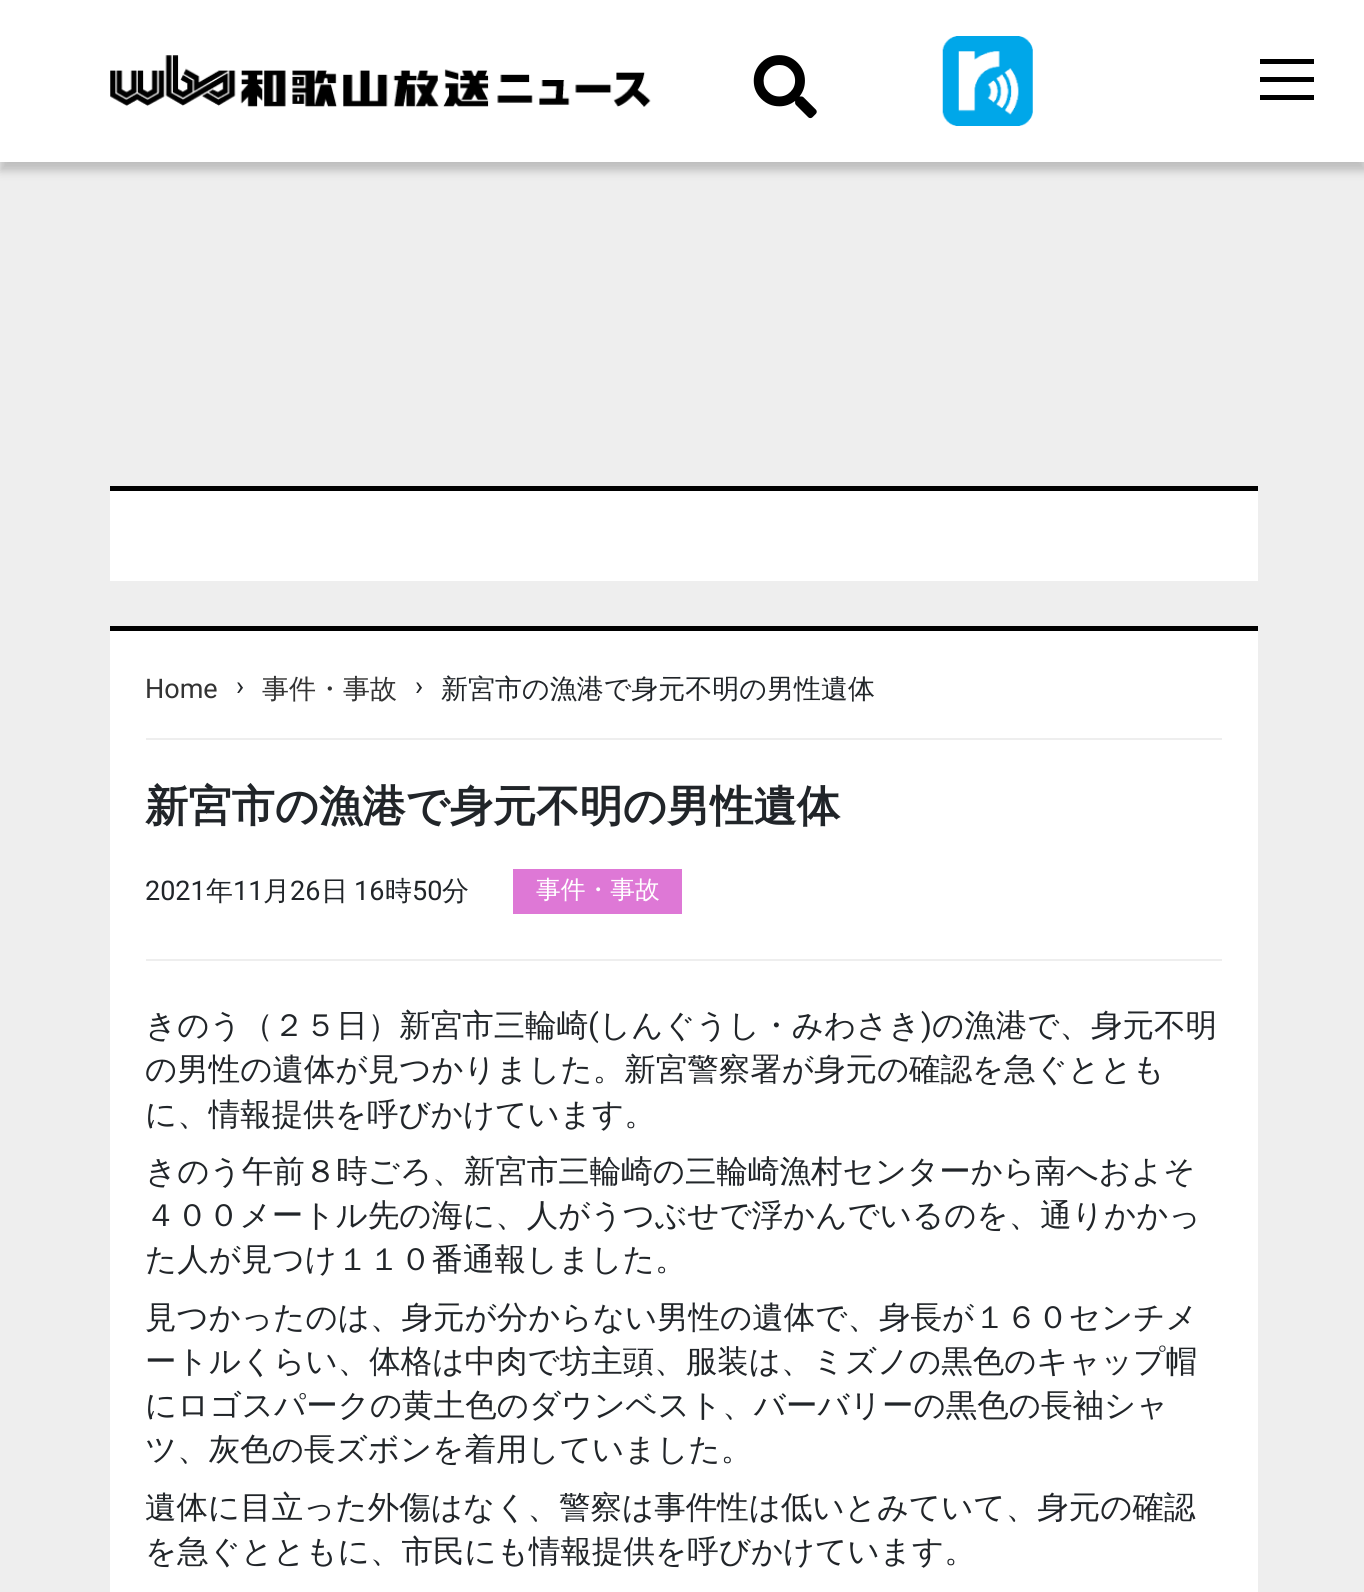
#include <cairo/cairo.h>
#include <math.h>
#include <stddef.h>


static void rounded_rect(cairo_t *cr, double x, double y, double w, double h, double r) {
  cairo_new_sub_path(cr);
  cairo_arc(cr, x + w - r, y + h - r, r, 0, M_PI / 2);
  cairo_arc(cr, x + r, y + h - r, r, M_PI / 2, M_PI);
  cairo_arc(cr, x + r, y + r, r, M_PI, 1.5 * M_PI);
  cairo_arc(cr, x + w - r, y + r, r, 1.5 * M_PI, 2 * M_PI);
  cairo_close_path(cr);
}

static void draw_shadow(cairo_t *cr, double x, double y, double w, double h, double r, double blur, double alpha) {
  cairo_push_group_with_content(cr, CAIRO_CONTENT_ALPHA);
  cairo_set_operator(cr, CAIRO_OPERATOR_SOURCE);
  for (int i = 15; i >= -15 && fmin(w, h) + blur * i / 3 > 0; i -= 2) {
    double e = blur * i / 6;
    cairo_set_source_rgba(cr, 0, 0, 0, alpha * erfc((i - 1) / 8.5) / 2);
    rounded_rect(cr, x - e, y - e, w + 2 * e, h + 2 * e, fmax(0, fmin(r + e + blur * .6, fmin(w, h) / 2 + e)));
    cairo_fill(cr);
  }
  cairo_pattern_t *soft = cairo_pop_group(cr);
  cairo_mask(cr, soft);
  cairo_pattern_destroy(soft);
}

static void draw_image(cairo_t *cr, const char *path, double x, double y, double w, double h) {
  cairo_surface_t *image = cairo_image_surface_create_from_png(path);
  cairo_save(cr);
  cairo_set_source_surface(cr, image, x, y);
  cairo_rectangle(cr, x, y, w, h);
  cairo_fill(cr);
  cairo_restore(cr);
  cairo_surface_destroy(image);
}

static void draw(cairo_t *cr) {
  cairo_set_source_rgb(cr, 238 / 255.0, 238 / 255.0, 238 / 255.0);
  cairo_paint(cr);
  cairo_set_source_rgb(cr, 0, 0, 0);
  draw_shadow(cr, 0, 9, 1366, 162, 0, 4.5, 0.2);
  cairo_set_source_rgb(cr, 1, 1, 1);
  cairo_rectangle(cr, 0, 0, 1364, 162);
  cairo_fill(cr);
  draw_image(cr, "images/1.png", 110, 55, 541, 52);
  draw_image(cr, "images/2.png", 753, 55, 64, 64);
  draw_image(cr, "images/3.png", 942, 36, 91, 90);
  cairo_set_source_rgb(cr, 0, 0, 0);
  cairo_rectangle(cr, 1260, 59, 54, 5);
  cairo_fill(cr);
  cairo_rectangle(cr, 1260, 77, 54, 5);
  cairo_fill(cr);
  cairo_rectangle(cr, 1260, 95, 54, 5);
  cairo_fill(cr);
  cairo_set_source_rgb(cr, 1, 1, 1);
  cairo_rectangle(cr, 110, 491, 1148, 90);
  cairo_fill(cr);
  cairo_set_source_rgb(cr, 0, 0, 0);
  cairo_rectangle(cr, 110, 486, 1148, 5);
  cairo_fill(cr);
  cairo_set_source_rgb(cr, 1, 1, 1);
  cairo_rectangle(cr, 110, 631, 1148, 961);
  cairo_fill(cr);
  cairo_set_source_rgb(cr, 0, 0, 0);
  cairo_rectangle(cr, 110, 626, 1148, 5);
  cairo_fill(cr);
  cairo_set_source_rgb(cr, 238 / 255.0, 238 / 255.0, 238 / 255.0);
  cairo_rectangle(cr, 146, 738, 1076, 2);
  cairo_fill(cr);
  cairo_set_source_rgb(cr, 222 / 255.0, 120 / 255.0, 214 / 255.0);
  cairo_rectangle(cr, 513, 869, 169, 45);
  cairo_fill(cr);
  cairo_set_source_rgb(cr, 238 / 255.0, 238 / 255.0, 238 / 255.0);
  cairo_rectangle(cr, 146, 959, 1076, 2);
  cairo_fill(cr);
  cairo_select_font_face(cr, "Roboto", CAIRO_FONT_SLANT_NORMAL, CAIRO_FONT_WEIGHT_NORMAL);
  cairo_set_font_size(cr, 27);
  cairo_set_source_rgb(cr, 51 / 255.0, 51 / 255.0, 51 / 255.0);
  cairo_move_to(cr, 145, 698);
  cairo_show_text(cr, "Home");
  cairo_set_source_rgb(cr, 33 / 255.0, 37 / 255.0, 41 / 255.0);
  cairo_move_to(cr, 236, 695);
  cairo_show_text(cr, "›");
  cairo_select_font_face(cr, "WenQuanYi Zen Hei Medium", CAIRO_FONT_SLANT_NORMAL, CAIRO_FONT_WEIGHT_NORMAL);
  cairo_set_source_rgb(cr, 51 / 255.0, 51 / 255.0, 51 / 255.0);
  cairo_move_to(cr, 262, 698);
  cairo_show_text(cr, "事件・事故");
  cairo_select_font_face(cr, "Roboto", CAIRO_FONT_SLANT_NORMAL, CAIRO_FONT_WEIGHT_NORMAL);
  cairo_set_source_rgb(cr, 33 / 255.0, 37 / 255.0, 41 / 255.0);
  cairo_move_to(cr, 415, 695);
  cairo_show_text(cr, "›");
  cairo_select_font_face(cr, "WenQuanYi Zen Hei Medium", CAIRO_FONT_SLANT_NORMAL, CAIRO_FONT_WEIGHT_NORMAL);
  cairo_move_to(cr, 441, 698);
  cairo_show_text(cr, "新宮市の漁港で身元不明の男性遺体");
  cairo_select_font_face(cr, "WenQuanYi Zen Hei", CAIRO_FONT_SLANT_NORMAL, CAIRO_FONT_WEIGHT_BOLD);
  cairo_set_font_size(cr, 43.25);
  cairo_move_to(cr, 145, 821);
  cairo_show_text(cr, "新宮市の漁港で身元不明の男性遺体");
  cairo_select_font_face(cr, "Roboto", CAIRO_FONT_SLANT_NORMAL, CAIRO_FONT_WEIGHT_NORMAL);
  cairo_set_font_size(cr, 27);
  cairo_move_to(cr, 145, 900);
  cairo_show_text(cr, "2021");
  cairo_select_font_face(cr, "WenQuanYi Zen Hei Medium", CAIRO_FONT_SLANT_NORMAL, CAIRO_FONT_WEIGHT_NORMAL);
  cairo_move_to(cr, 206, 900);
  cairo_show_text(cr, "年");
  cairo_select_font_face(cr, "Roboto", CAIRO_FONT_SLANT_NORMAL, CAIRO_FONT_WEIGHT_NORMAL);
  cairo_move_to(cr, 233, 900);
  cairo_show_text(cr, "11");
  cairo_select_font_face(cr, "WenQuanYi Zen Hei Medium", CAIRO_FONT_SLANT_NORMAL, CAIRO_FONT_WEIGHT_NORMAL);
  cairo_move_to(cr, 263, 900);
  cairo_show_text(cr, "月");
  cairo_select_font_face(cr, "Roboto", CAIRO_FONT_SLANT_NORMAL, CAIRO_FONT_WEIGHT_NORMAL);
  cairo_move_to(cr, 290, 900);
  cairo_show_text(cr, "26");
  cairo_select_font_face(cr, "WenQuanYi Zen Hei Medium", CAIRO_FONT_SLANT_NORMAL, CAIRO_FONT_WEIGHT_NORMAL);
  cairo_move_to(cr, 321, 900);
  cairo_show_text(cr, "日");
  cairo_select_font_face(cr, "Roboto", CAIRO_FONT_SLANT_NORMAL, CAIRO_FONT_WEIGHT_NORMAL);
  cairo_move_to(cr, 354, 900);
  cairo_show_text(cr, "16");
  cairo_select_font_face(cr, "WenQuanYi Zen Hei Medium", CAIRO_FONT_SLANT_NORMAL, CAIRO_FONT_WEIGHT_NORMAL);
  cairo_move_to(cr, 385, 900);
  cairo_show_text(cr, "時");
  cairo_select_font_face(cr, "Roboto", CAIRO_FONT_SLANT_NORMAL, CAIRO_FONT_WEIGHT_NORMAL);
  cairo_move_to(cr, 412, 900);
  cairo_show_text(cr, "50");
  cairo_select_font_face(cr, "WenQuanYi Zen Hei Medium", CAIRO_FONT_SLANT_NORMAL, CAIRO_FONT_WEIGHT_NORMAL);
  cairo_move_to(cr, 442, 900);
  cairo_show_text(cr, "分");
  cairo_set_font_size(cr, 24.75);
  cairo_set_source_rgb(cr, 1, 1, 1);
  cairo_move_to(cr, 536, 898);
  cairo_show_text(cr, "事件・事故");
  cairo_set_font_size(cr, 31.5);
  cairo_set_source_rgb(cr, 33 / 255.0, 37 / 255.0, 41 / 255.0);
  cairo_move_to(cr, 145, 1036);
  cairo_show_text(cr, "きのう（２５日）新宮市三輪崎");
  cairo_select_font_face(cr, "Roboto", CAIRO_FONT_SLANT_NORMAL, CAIRO_FONT_WEIGHT_NORMAL);
  cairo_move_to(cr, 588, 1036);
  cairo_show_text(cr, "(");
  cairo_select_font_face(cr, "WenQuanYi Zen Hei Medium", CAIRO_FONT_SLANT_NORMAL, CAIRO_FONT_WEIGHT_NORMAL);
  cairo_move_to(cr, 599, 1036);
  cairo_show_text(cr, "しんぐうし・みわさき");
  cairo_select_font_face(cr, "Roboto", CAIRO_FONT_SLANT_NORMAL, CAIRO_FONT_WEIGHT_NORMAL);
  cairo_move_to(cr, 921, 1036);
  cairo_show_text(cr, ")");
  cairo_select_font_face(cr, "WenQuanYi Zen Hei Medium", CAIRO_FONT_SLANT_NORMAL, CAIRO_FONT_WEIGHT_NORMAL);
  cairo_move_to(cr, 932, 1036);
  cairo_show_text(cr, "の漁港で、身元不明");
  cairo_move_to(cr, 145, 1080);
  cairo_show_text(cr, "の男性の遺体が見つかりました。新宮警察署が身元の確認を急ぐととも");
  cairo_move_to(cr, 145, 1125);
  cairo_show_text(cr, "に、情報提供を呼びかけています。");
  cairo_move_to(cr, 145, 1182);
  cairo_show_text(cr, "きのう午前８時ごろ、新宮市三輪崎の三輪崎漁村センターから南へおよそ");
  cairo_move_to(cr, 145, 1226);
  cairo_show_text(cr, "４００メートル先の海に、人がうつぶせで浮かんでいるのを、通りかかっ");
  cairo_move_to(cr, 145, 1270);
  cairo_show_text(cr, "た人が見つけ１１０番通報しました。");
  cairo_move_to(cr, 145, 1328);
  cairo_show_text(cr, "見つかったのは、身元が分からない男性の遺体で、身長が１６０センチメ");
  cairo_move_to(cr, 145, 1372);
  cairo_show_text(cr, "ートルくらい、体格は中肉で坊主頭、服装は、ミズノの黒色のキャップ帽");
  cairo_move_to(cr, 145, 1416);
  cairo_show_text(cr, "にロゴスパークの黄土色のダウンベスト、バーバリーの黒色の長袖シャ");
  cairo_move_to(cr, 145, 1460);
  cairo_show_text(cr, "ツ、灰色の長ズボンを着用していました。");
  cairo_move_to(cr, 145, 1518);
  cairo_show_text(cr, "遺体に目立った外傷はなく、警察は事件性は低いとみていて、身元の確認");
  cairo_move_to(cr, 145, 1562);
  cairo_show_text(cr, "を急ぐとともに、市民にも情報提供を呼びかけています。");
}

int main(void) {
  cairo_surface_t *surface = cairo_image_surface_create(CAIRO_FORMAT_RGB24, 1364, 1592);
  cairo_t *cr = cairo_create(surface);
  cairo_font_options_t *options = cairo_font_options_create();
  cairo_font_options_set_hint_metrics(options, CAIRO_HINT_METRICS_OFF);
  cairo_font_options_set_hint_style(options, CAIRO_HINT_STYLE_NONE);
  cairo_set_font_options(cr, options);
  cairo_set_miter_limit(cr, 4);
  draw(cr);
  cairo_surface_write_to_png(surface, "out.png");
  cairo_font_options_destroy(options);
  cairo_destroy(cr);
  cairo_surface_destroy(surface);
  return 0;
}
